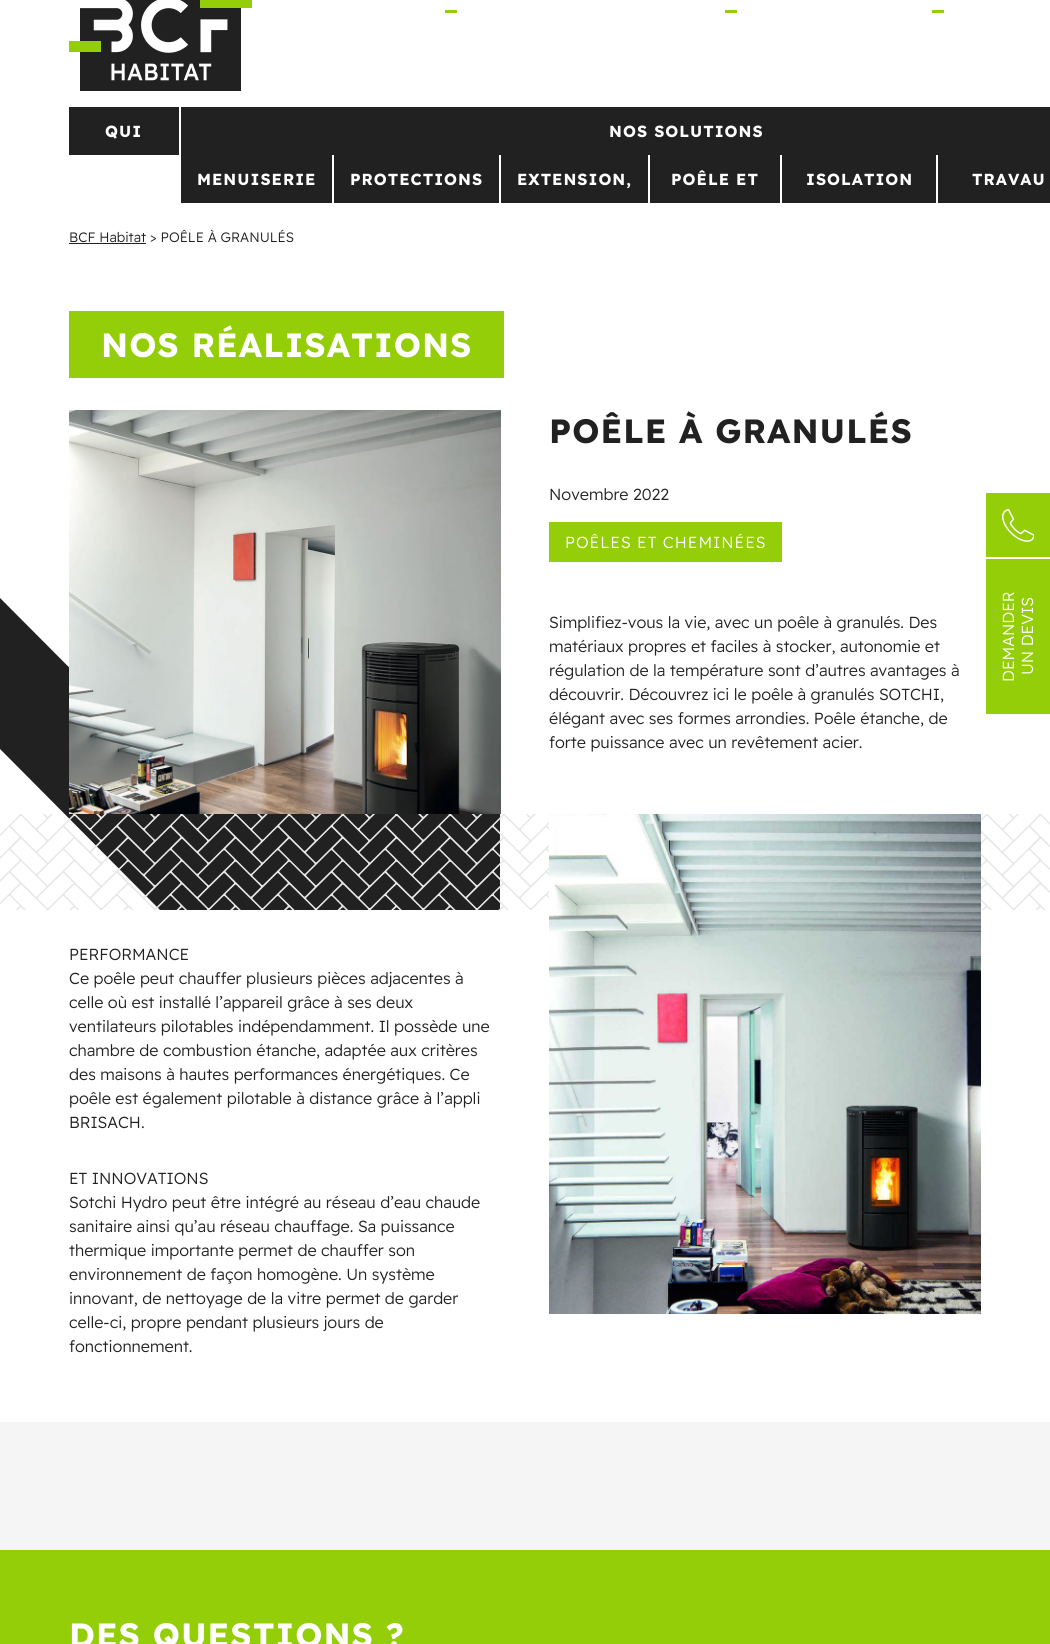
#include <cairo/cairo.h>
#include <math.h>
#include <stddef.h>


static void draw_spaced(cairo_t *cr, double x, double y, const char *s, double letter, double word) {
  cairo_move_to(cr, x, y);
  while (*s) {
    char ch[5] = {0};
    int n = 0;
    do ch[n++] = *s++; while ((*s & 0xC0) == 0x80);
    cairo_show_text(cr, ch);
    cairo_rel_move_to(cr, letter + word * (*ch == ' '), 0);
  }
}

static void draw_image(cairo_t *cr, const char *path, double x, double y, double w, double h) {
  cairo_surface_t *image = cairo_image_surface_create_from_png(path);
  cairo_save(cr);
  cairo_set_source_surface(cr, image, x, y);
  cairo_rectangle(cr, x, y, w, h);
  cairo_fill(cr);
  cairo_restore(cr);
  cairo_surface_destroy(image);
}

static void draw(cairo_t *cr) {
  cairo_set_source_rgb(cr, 1, 1, 1);
  cairo_paint(cr);
  draw_image(cr, "images/1.png", 69, 0, 183, 91);
  cairo_set_source_rgb(cr, 147 / 255.0, 206 / 255.0, 8 / 255.0);
  cairo_rectangle(cr, 445, 10, 12, 3);
  cairo_fill(cr);
  cairo_rectangle(cr, 725, 10, 12, 3);
  cairo_fill(cr);
  cairo_rectangle(cr, 932, 10, 12, 3);
  cairo_fill(cr);
  cairo_set_source_rgb(cr, 33 / 255.0, 33 / 255.0, 33 / 255.0);
  cairo_rectangle(cr, 69, 107, 110, 48);
  cairo_fill(cr);
  cairo_rectangle(cr, 181, 107, 869, 48);
  cairo_fill(cr);
  cairo_rectangle(cr, 181, 155, 151, 48);
  cairo_fill(cr);
  cairo_rectangle(cr, 334, 155, 165, 48);
  cairo_fill(cr);
  cairo_rectangle(cr, 501, 155, 147, 48);
  cairo_fill(cr);
  cairo_rectangle(cr, 650, 155, 130, 48);
  cairo_fill(cr);
  cairo_rectangle(cr, 782, 155, 154, 48);
  cairo_fill(cr);
  cairo_rectangle(cr, 938, 155, 112, 48);
  cairo_fill(cr);
  cairo_set_source_rgb(cr, 147 / 255.0, 206 / 255.0, 8 / 255.0);
  cairo_rectangle(cr, 986, 493, 64, 64);
  cairo_fill(cr);
  draw_image(cr, "images/2.png", 1002, 509, 32, 33);
  cairo_rectangle(cr, 986, 559, 64, 155);
  cairo_fill(cr);
  cairo_set_source_rgb(cr, 33 / 255.0, 33 / 255.0, 33 / 255.0);
  cairo_rectangle(cr, 69, 243, 77, 1);
  cairo_fill(cr);
  cairo_set_source_rgb(cr, 147 / 255.0, 206 / 255.0, 8 / 255.0);
  cairo_rectangle(cr, 69, 311, 435, 67);
  cairo_fill(cr);
  cairo_set_source_rgb(cr, 33 / 255.0, 33 / 255.0, 33 / 255.0);
  cairo_new_path(cr);
  cairo_move_to(cr, -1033, -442);
  cairo_line_to(cr, -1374, -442);
  cairo_line_to(cr, -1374, -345);
  cairo_line_to(cr, -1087, -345);
  cairo_line_to(cr, 160, 910);
  cairo_line_to(cr, 500, 910);
  cairo_line_to(cr, 500, 813);
  cairo_line_to(cr, 214, 813);
  cairo_line_to(cr, -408, 188);
  cairo_fill(cr);
  draw_image(cr, "images/3.png", 69, 410, 432, 404);
  cairo_set_source_rgb(cr, 147 / 255.0, 206 / 255.0, 8 / 255.0);
  cairo_rectangle(cr, 549, 522, 233, 40);
  cairo_fill(cr);
  draw_image(cr, "images/4.png", 0, 814, 1050, 96);
  draw_image(cr, "images/5.png", 549, 814, 432, 500);
  cairo_set_source_rgb(cr, 245 / 255.0, 245 / 255.0, 245 / 255.0);
  cairo_rectangle(cr, 0, 1422, 1050, 128);
  cairo_fill(cr);
  cairo_set_source_rgb(cr, 147 / 255.0, 206 / 255.0, 8 / 255.0);
  cairo_rectangle(cr, 0, 1550, 1050, 94);
  cairo_fill(cr);
  cairo_select_font_face(cr, "Readex Pro", CAIRO_FONT_SLANT_NORMAL, CAIRO_FONT_WEIGHT_BOLD);
  cairo_set_font_size(cr, 16);
  cairo_set_source_rgb(cr, 1, 1, 1);
  draw_spaced(cr, 105, 137, "QUI", 1, 0);
  draw_spaced(cr, 609, 137, "NOS SOLUTIONS", 1, 0);
  draw_spaced(cr, 197, 185, "MENUISERIE", 1, 0);
  draw_spaced(cr, 350, 185, "PROTECTIONS", 1, 0);
  draw_spaced(cr, 517, 185, "EXTENSION,", 1, 0);
  draw_spaced(cr, 671, 185, "POÊLE ET", 1, 0);
  draw_spaced(cr, 806, 185, "ISOLATION", 1, 0);
  draw_spaced(cr, 972, 185, "TRAVAU", 1, 0);
  cairo_select_font_face(cr, "Readex Pro Light", CAIRO_FONT_SLANT_NORMAL, CAIRO_FONT_WEIGHT_NORMAL);
  cairo_save(cr);
  cairo_translate(cr, 1014, 682);
  cairo_rotate(cr, -90 * M_PI / 180);
  cairo_move_to(cr, 0, 0);
  cairo_show_text(cr, "DEMANDER");
  cairo_restore(cr);
  cairo_save(cr);
  cairo_translate(cr, 1033, 675);
  cairo_rotate(cr, -90 * M_PI / 180);
  cairo_move_to(cr, 0, 0);
  cairo_show_text(cr, "UN DEVIS");
  cairo_restore(cr);
  cairo_set_font_size(cr, 13.6);
  cairo_set_source_rgb(cr, 33 / 255.0, 33 / 255.0, 33 / 255.0);
  cairo_move_to(cr, 69, 242);
  cairo_show_text(cr, "BCF Habitat > POÊLE À GRANULÉS");
  cairo_select_font_face(cr, "Readex Pro", CAIRO_FONT_SLANT_NORMAL, CAIRO_FONT_WEIGHT_BOLD);
  cairo_set_font_size(cr, 33.6);
  cairo_set_source_rgb(cr, 1, 1, 1);
  draw_spaced(cr, 101, 357, "NOS RÉALISATIONS", 1, 0);
  cairo_set_source_rgb(cr, 33 / 255.0, 33 / 255.0, 33 / 255.0);
  draw_spaced(cr, 549, 443, "POÊLE À GRANULÉS", 1, 0);
  cairo_select_font_face(cr, "Readex Pro Light", CAIRO_FONT_SLANT_NORMAL, CAIRO_FONT_WEIGHT_NORMAL);
  cairo_set_font_size(cr, 16);
  cairo_move_to(cr, 549, 500);
  cairo_show_text(cr, "Novembre 2022");
  cairo_set_source_rgb(cr, 1, 1, 1);
  draw_spaced(cr, 565, 548, "POÊLES ET CHEMINÉES", 1, 0);
  cairo_set_source_rgb(cr, 33 / 255.0, 33 / 255.0, 33 / 255.0);
  cairo_move_to(cr, 549, 628);
  cairo_show_text(cr, "Simplifiez-vous la vie, avec un poêle à granulés. Des");
  cairo_move_to(cr, 549, 652);
  cairo_show_text(cr, "matériaux propres et faciles à stocker, autonomie et");
  cairo_move_to(cr, 549, 676);
  cairo_show_text(cr, "régulation de la température sont d’autres avantages à");
  cairo_move_to(cr, 549, 700);
  cairo_show_text(cr, "découvrir. Découvrez ici le poêle à granulés SOTCHI,");
  cairo_move_to(cr, 549, 724);
  cairo_show_text(cr, "élégant avec ses formes arrondies. Poêle étanche, de");
  cairo_move_to(cr, 549, 748);
  cairo_show_text(cr, "forte puissance avec un revêtement acier.");
  cairo_move_to(cr, 69, 960);
  cairo_show_text(cr, "PERFORMANCE");
  cairo_move_to(cr, 69, 984);
  cairo_show_text(cr, "Ce poêle peut chauffer plusieurs pièces adjacentes à");
  cairo_move_to(cr, 69, 1008);
  cairo_show_text(cr, "celle où est installé l’appareil grâce à ses deux");
  cairo_move_to(cr, 69, 1032);
  cairo_show_text(cr, "ventilateurs pilotables indépendamment. Il possède une");
  cairo_move_to(cr, 69, 1056);
  cairo_show_text(cr, "chambre de combustion étanche, adaptée aux critères");
  cairo_move_to(cr, 69, 1080);
  cairo_show_text(cr, "des maisons à hautes performances énergétiques. Ce");
  cairo_move_to(cr, 69, 1104);
  cairo_show_text(cr, "poêle est également pilotable à distance grâce à l’appli");
  cairo_move_to(cr, 69, 1128);
  cairo_show_text(cr, "BRISACH.");
  cairo_move_to(cr, 69, 1184);
  cairo_show_text(cr, "ET INNOVATIONS");
  cairo_move_to(cr, 69, 1208);
  cairo_show_text(cr, "Sotchi Hydro peut être intégré au réseau d’eau chaude");
  cairo_move_to(cr, 69, 1232);
  cairo_show_text(cr, "sanitaire ainsi qu’au réseau chauffage. Sa puissance");
  cairo_move_to(cr, 69, 1256);
  cairo_show_text(cr, "thermique importante permet de chauffer son");
  cairo_move_to(cr, 69, 1280);
  cairo_show_text(cr, "environnement de façon homogène. Un système");
  cairo_move_to(cr, 69, 1304);
  cairo_show_text(cr, "innovant, de nettoyage de la vitre permet de garder");
  cairo_move_to(cr, 69, 1328);
  cairo_show_text(cr, "celle-ci, propre pendant plusieurs jours de");
  cairo_move_to(cr, 69, 1352);
  cairo_show_text(cr, "fonctionnement.");
  cairo_select_font_face(cr, "Readex Pro", CAIRO_FONT_SLANT_NORMAL, CAIRO_FONT_WEIGHT_BOLD);
  cairo_set_font_size(cr, 33.6);
  cairo_set_source_rgb(cr, 1, 1, 1);
  draw_spaced(cr, 69, 1647, "DES QUESTIONS ?", 1, 0);
}

int main(void) {
  cairo_surface_t *surface = cairo_image_surface_create(CAIRO_FORMAT_RGB24, 1050, 1644);
  cairo_t *cr = cairo_create(surface);
  cairo_font_options_t *options = cairo_font_options_create();
  cairo_font_options_set_hint_metrics(options, CAIRO_HINT_METRICS_OFF);
  cairo_font_options_set_hint_style(options, CAIRO_HINT_STYLE_NONE);
  cairo_set_font_options(cr, options);
  cairo_set_miter_limit(cr, 4);
  draw(cr);
  cairo_surface_write_to_png(surface, "out.png");
  cairo_font_options_destroy(options);
  cairo_destroy(cr);
  cairo_surface_destroy(surface);
  return 0;
}
